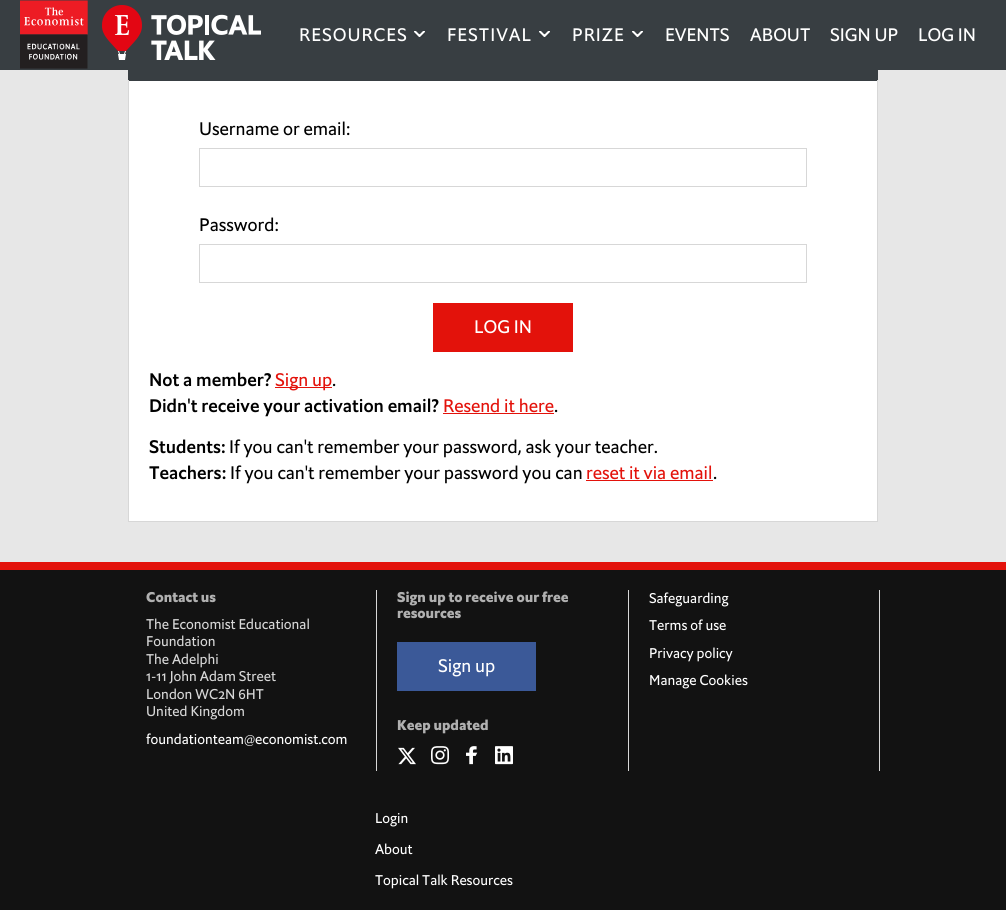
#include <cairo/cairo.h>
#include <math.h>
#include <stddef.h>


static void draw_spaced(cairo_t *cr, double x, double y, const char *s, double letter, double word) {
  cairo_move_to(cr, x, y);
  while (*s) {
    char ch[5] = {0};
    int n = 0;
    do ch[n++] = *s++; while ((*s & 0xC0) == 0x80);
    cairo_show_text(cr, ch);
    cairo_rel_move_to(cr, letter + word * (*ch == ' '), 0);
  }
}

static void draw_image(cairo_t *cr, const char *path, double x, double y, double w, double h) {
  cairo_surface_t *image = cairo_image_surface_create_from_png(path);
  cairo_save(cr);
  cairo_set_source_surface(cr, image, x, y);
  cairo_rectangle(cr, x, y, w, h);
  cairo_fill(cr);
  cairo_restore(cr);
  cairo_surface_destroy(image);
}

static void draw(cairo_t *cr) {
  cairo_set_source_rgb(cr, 231 / 255.0, 231 / 255.0, 231 / 255.0);
  cairo_paint(cr);
  cairo_set_source_rgb(cr, 56 / 255.0, 62 / 255.0, 66 / 255.0);
  cairo_rectangle(cr, 0, 0, 1006, 70);
  cairo_fill(cr);
  draw_image(cr, "images/1.png", 20, 0, 68, 69);
  draw_image(cr, "images/2.png", 102, 5, 159, 55);
  draw_image(cr, "images/3.png", 414, 31, 11, 6);
  draw_image(cr, "images/3.png", 539, 31, 11, 6);
  draw_image(cr, "images/3.png", 632, 31, 11, 6);
  cairo_set_source_rgb(cr, 1, 1, 1);
  cairo_rectangle(cr, 129, 81, 748, 440);
  cairo_fill(cr);
  cairo_set_source_rgb(cr, 56 / 255.0, 62 / 255.0, 66 / 255.0);
  cairo_rectangle(cr, 128, 70, 750, 11);
  cairo_fill(cr);
  cairo_set_source_rgb(cr, 215 / 255.0, 215 / 255.0, 215 / 255.0);
  cairo_rectangle(cr, 877, 80, 1, 442);
  cairo_fill(cr);
  cairo_rectangle(cr, 128, 521, 750, 1);
  cairo_fill(cr);
  cairo_rectangle(cr, 128, 80, 1, 442);
  cairo_fill(cr);
  cairo_rectangle(cr, 199.5, 148.5, 607, 38);
  cairo_set_line_width(cr, 1);
  cairo_stroke(cr);
  cairo_rectangle(cr, 199.5, 244.5, 607, 38);
  cairo_stroke(cr);
  cairo_set_source_rgb(cr, 227 / 255.0, 18 / 255.0, 11 / 255.0);
  cairo_rectangle(cr, 433, 303, 140, 49);
  cairo_fill(cr);
  cairo_rectangle(cr, 275, 387, 57, 1);
  cairo_fill(cr);
  cairo_rectangle(cr, 443, 413, 111, 1);
  cairo_fill(cr);
  cairo_rectangle(cr, 586, 480, 127, 1);
  cairo_fill(cr);
  cairo_set_source_rgb(cr, 18 / 255.0, 18 / 255.0, 18 / 255.0);
  cairo_rectangle(cr, 0, 570, 1006, 340);
  cairo_fill(cr);
  cairo_set_source_rgb(cr, 227 / 255.0, 18 / 255.0, 11 / 255.0);
  cairo_rectangle(cr, 0, 562, 1006, 8);
  cairo_fill(cr);
  cairo_set_source_rgb(cr, 215 / 255.0, 215 / 255.0, 215 / 255.0);
  cairo_rectangle(cr, 376, 590, 1, 181);
  cairo_fill(cr);
  cairo_rectangle(cr, 628, 590, 1, 181);
  cairo_fill(cr);
  cairo_set_source_rgb(cr, 59 / 255.0, 89 / 255.0, 152 / 255.0);
  cairo_rectangle(cr, 397, 642, 139, 49);
  cairo_fill(cr);
  draw_image(cr, "images/4.png", 398, 747, 18, 18);
  draw_image(cr, "images/5.png", 431, 746, 18, 19);
  draw_image(cr, "images/6.png", 466, 746, 12, 19);
  draw_image(cr, "images/7.png", 495, 746, 18, 19);
  cairo_set_source_rgb(cr, 215 / 255.0, 215 / 255.0, 215 / 255.0);
  cairo_rectangle(cr, 879, 590, 1, 181);
  cairo_fill(cr);
  cairo_select_font_face(cr, "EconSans", CAIRO_FONT_SLANT_NORMAL, CAIRO_FONT_WEIGHT_NORMAL);
  cairo_set_font_size(cr, 18);
  cairo_set_source_rgb(cr, 1, 1, 1);
  draw_spaced(cr, 299, 41, "RESOURCES", 1, 0);
  draw_spaced(cr, 447, 41, "FESTIVAL", 1, 0);
  draw_spaced(cr, 572, 41, "PRIZE", 1, 0);
  cairo_move_to(cr, 665, 41);
  cairo_show_text(cr, "EVENTS");
  cairo_move_to(cr, 750, 41);
  cairo_show_text(cr, "ABOUT");
  cairo_move_to(cr, 830, 41);
  cairo_show_text(cr, "SIGN UP");
  cairo_move_to(cr, 918, 41);
  cairo_show_text(cr, "LOG IN");
  cairo_set_source_rgb(cr, 0, 0, 0);
  cairo_move_to(cr, 199, 135);
  cairo_show_text(cr, "Username or email:");
  cairo_move_to(cr, 199, 231);
  cairo_show_text(cr, "Password:");
  cairo_set_source_rgb(cr, 1, 1, 1);
  cairo_move_to(cr, 474, 333);
  cairo_show_text(cr, "LOG IN");
  cairo_select_font_face(cr, "EconSans Medium", CAIRO_FONT_SLANT_NORMAL, CAIRO_FONT_WEIGHT_NORMAL);
  cairo_set_source_rgb(cr, 0, 0, 0);
  cairo_move_to(cr, 149, 386);
  cairo_show_text(cr, "Not a member?");
  cairo_select_font_face(cr, "EconSans", CAIRO_FONT_SLANT_NORMAL, CAIRO_FONT_WEIGHT_NORMAL);
  cairo_set_source_rgb(cr, 227 / 255.0, 18 / 255.0, 11 / 255.0);
  cairo_move_to(cr, 275, 386);
  cairo_show_text(cr, "Sign up");
  cairo_set_source_rgb(cr, 0, 0, 0);
  cairo_move_to(cr, 332, 386);
  cairo_show_text(cr, ".");
  cairo_select_font_face(cr, "EconSans Medium", CAIRO_FONT_SLANT_NORMAL, CAIRO_FONT_WEIGHT_NORMAL);
  cairo_move_to(cr, 149, 412);
  cairo_show_text(cr, "Didn't receive your activation email?");
  cairo_select_font_face(cr, "EconSans", CAIRO_FONT_SLANT_NORMAL, CAIRO_FONT_WEIGHT_NORMAL);
  cairo_set_source_rgb(cr, 227 / 255.0, 18 / 255.0, 11 / 255.0);
  cairo_move_to(cr, 443, 412);
  cairo_show_text(cr, "Resend it here");
  cairo_set_source_rgb(cr, 0, 0, 0);
  cairo_move_to(cr, 554, 412);
  cairo_show_text(cr, ".");
  cairo_select_font_face(cr, "EconSans Medium", CAIRO_FONT_SLANT_NORMAL, CAIRO_FONT_WEIGHT_NORMAL);
  cairo_move_to(cr, 149, 453);
  cairo_show_text(cr, "Students:");
  cairo_select_font_face(cr, "EconSans", CAIRO_FONT_SLANT_NORMAL, CAIRO_FONT_WEIGHT_NORMAL);
  cairo_move_to(cr, 229, 453);
  cairo_show_text(cr, "If you can't remember your password, ask your teacher.");
  cairo_select_font_face(cr, "EconSans Medium", CAIRO_FONT_SLANT_NORMAL, CAIRO_FONT_WEIGHT_NORMAL);
  cairo_move_to(cr, 149, 479);
  cairo_show_text(cr, "Teachers:");
  cairo_select_font_face(cr, "EconSans", CAIRO_FONT_SLANT_NORMAL, CAIRO_FONT_WEIGHT_NORMAL);
  cairo_move_to(cr, 230, 479);
  cairo_show_text(cr, "If you can't remember your password you can");
  cairo_set_source_rgb(cr, 227 / 255.0, 18 / 255.0, 11 / 255.0);
  cairo_move_to(cr, 586, 479);
  cairo_show_text(cr, "reset it via email");
  cairo_set_source_rgb(cr, 0, 0, 0);
  cairo_move_to(cr, 713, 479);
  cairo_show_text(cr, ".");
  cairo_select_font_face(cr, "EconSans ExtraBold", CAIRO_FONT_SLANT_NORMAL, CAIRO_FONT_WEIGHT_NORMAL);
  cairo_set_font_size(cr, 14);
  cairo_set_source_rgb(cr, 176 / 255.0, 176 / 255.0, 176 / 255.0);
  cairo_move_to(cr, 146, 602);
  cairo_show_text(cr, "Contact us");
  cairo_select_font_face(cr, "EconSans", CAIRO_FONT_SLANT_NORMAL, CAIRO_FONT_WEIGHT_NORMAL);
  cairo_set_source_rgb(cr, 215 / 255.0, 215 / 255.0, 215 / 255.0);
  cairo_move_to(cr, 146, 629);
  cairo_show_text(cr, "The Economist Educational");
  cairo_move_to(cr, 146, 646);
  cairo_show_text(cr, "Foundation");
  cairo_move_to(cr, 146, 664);
  cairo_show_text(cr, "The Adelphi");
  cairo_move_to(cr, 146, 681);
  cairo_show_text(cr, "1-11 John Adam Street");
  cairo_move_to(cr, 146, 699);
  cairo_show_text(cr, "London WC2N 6HT");
  cairo_move_to(cr, 146, 716);
  cairo_show_text(cr, "United Kingdom");
  cairo_set_source_rgb(cr, 1, 1, 1);
  cairo_move_to(cr, 146, 744);
  cairo_show_text(cr, "foundationteam@economist.com");
  cairo_select_font_face(cr, "EconSans ExtraBold", CAIRO_FONT_SLANT_NORMAL, CAIRO_FONT_WEIGHT_NORMAL);
  cairo_set_source_rgb(cr, 176 / 255.0, 176 / 255.0, 176 / 255.0);
  cairo_move_to(cr, 397, 602);
  cairo_show_text(cr, "Sign up to receive our free");
  cairo_move_to(cr, 397, 618);
  cairo_show_text(cr, "resources");
  cairo_select_font_face(cr, "EconSans", CAIRO_FONT_SLANT_NORMAL, CAIRO_FONT_WEIGHT_NORMAL);
  cairo_set_font_size(cr, 18);
  cairo_set_source_rgb(cr, 1, 1, 1);
  cairo_move_to(cr, 438, 672);
  cairo_show_text(cr, "Sign up");
  cairo_select_font_face(cr, "EconSans ExtraBold", CAIRO_FONT_SLANT_NORMAL, CAIRO_FONT_WEIGHT_NORMAL);
  cairo_set_font_size(cr, 14);
  cairo_set_source_rgb(cr, 176 / 255.0, 176 / 255.0, 176 / 255.0);
  cairo_move_to(cr, 397, 730);
  cairo_show_text(cr, "Keep updated");
  cairo_select_font_face(cr, "EconSans", CAIRO_FONT_SLANT_NORMAL, CAIRO_FONT_WEIGHT_NORMAL);
  cairo_set_source_rgb(cr, 1, 1, 1);
  cairo_move_to(cr, 649, 603);
  cairo_show_text(cr, "Safeguarding");
  cairo_move_to(cr, 649, 630);
  cairo_show_text(cr, "Terms of use");
  cairo_move_to(cr, 649, 658);
  cairo_show_text(cr, "Privacy policy");
  cairo_move_to(cr, 649, 685);
  cairo_show_text(cr, "Manage Cookies");
  cairo_move_to(cr, 375, 823);
  cairo_show_text(cr, "Login");
  cairo_move_to(cr, 375, 854);
  cairo_show_text(cr, "About");
  cairo_move_to(cr, 375, 885);
  cairo_show_text(cr, "Topical Talk Resources");
}

int main(void) {
  cairo_surface_t *surface = cairo_image_surface_create(CAIRO_FORMAT_RGB24, 1006, 910);
  cairo_t *cr = cairo_create(surface);
  cairo_font_options_t *options = cairo_font_options_create();
  cairo_font_options_set_hint_metrics(options, CAIRO_HINT_METRICS_OFF);
  cairo_font_options_set_hint_style(options, CAIRO_HINT_STYLE_NONE);
  cairo_set_font_options(cr, options);
  cairo_set_miter_limit(cr, 4);
  draw(cr);
  cairo_surface_write_to_png(surface, "out.png");
  cairo_font_options_destroy(options);
  cairo_destroy(cr);
  cairo_surface_destroy(surface);
  return 0;
}
